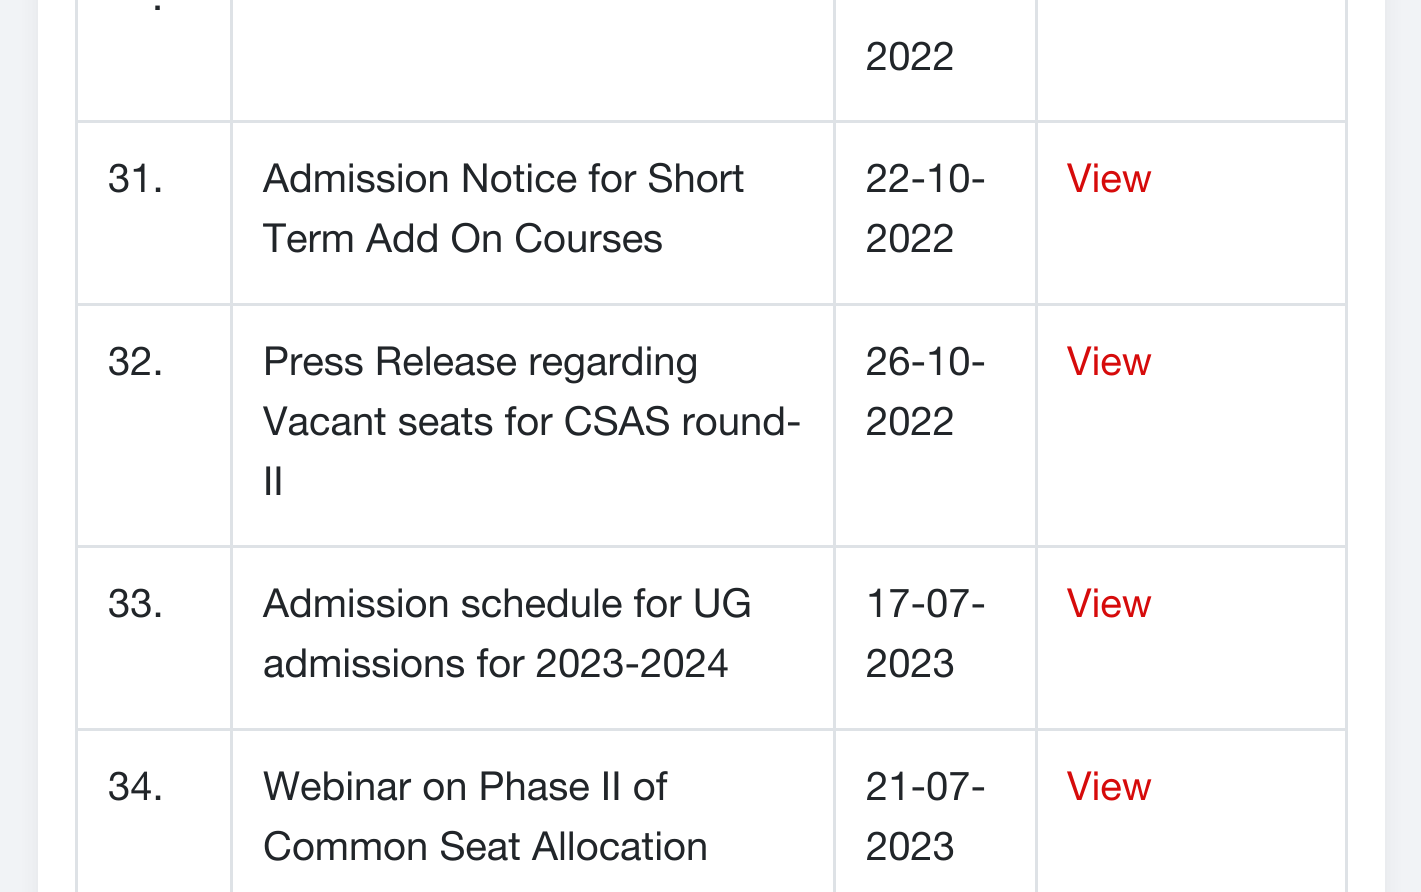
#include <cairo/cairo.h>
#include <math.h>
#include <stddef.h>


static void rounded_rect(cairo_t *cr, double x, double y, double w, double h, double r) {
  cairo_new_sub_path(cr);
  cairo_arc(cr, x + w - r, y + h - r, r, 0, M_PI / 2);
  cairo_arc(cr, x + r, y + h - r, r, M_PI / 2, M_PI);
  cairo_arc(cr, x + r, y + r, r, M_PI, 1.5 * M_PI);
  cairo_arc(cr, x + w - r, y + r, r, 1.5 * M_PI, 2 * M_PI);
  cairo_close_path(cr);
}

static void draw_shadow(cairo_t *cr, double x, double y, double w, double h, double r, double blur, double alpha) {
  cairo_push_group_with_content(cr, CAIRO_CONTENT_ALPHA);
  cairo_set_operator(cr, CAIRO_OPERATOR_SOURCE);
  for (int i = 15; i >= -15 && fmin(w, h) + blur * i / 3 > 0; i -= 2) {
    double e = blur * i / 6;
    cairo_set_source_rgba(cr, 0, 0, 0, alpha * erfc((i - 1) / 8.5) / 2);
    rounded_rect(cr, x - e, y - e, w + 2 * e, h + 2 * e, fmax(0, fmin(r + e + blur * .6, fmin(w, h) / 2 + e)));
    cairo_fill(cr);
  }
  cairo_pattern_t *soft = cairo_pop_group(cr);
  cairo_mask(cr, soft);
  cairo_pattern_destroy(soft);
}

static void draw(cairo_t *cr) {
  cairo_set_source_rgb(cr, 241 / 255.0, 243 / 255.0, 246 / 255.0);
  cairo_paint(cr);
  cairo_set_source_rgb(cr, 0, 0, 0);
  draw_shadow(cr, 38, -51, 1347, 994, 18, 11, 0.06);
  cairo_set_source_rgb(cr, 1, 1, 1);
  cairo_rectangle(cr, 38, 0, 1347, 892);
  cairo_fill(cr);
  cairo_set_source_rgb(cr, 222 / 255.0, 226 / 255.0, 230 / 255.0);
  cairo_rectangle(cr, 1035, 120, 313, 3);
  cairo_fill(cr);
  cairo_rectangle(cr, 1035, 303, 313, 3);
  cairo_fill(cr);
  cairo_rectangle(cr, 1035, 545, 313, 3);
  cairo_fill(cr);
  cairo_rectangle(cr, 1035, 728, 313, 3);
  cairo_fill(cr);
  cairo_rectangle(cr, 1035, 728, 3, 164);
  cairo_fill(cr);
  cairo_rectangle(cr, 833, 728, 205, 3);
  cairo_fill(cr);
  cairo_rectangle(cr, 1035, 545, 3, 185);
  cairo_fill(cr);
  cairo_rectangle(cr, 833, 545, 205, 3);
  cairo_fill(cr);
  cairo_rectangle(cr, 1035, 303, 3, 245);
  cairo_fill(cr);
  cairo_rectangle(cr, 833, 303, 205, 3);
  cairo_fill(cr);
  cairo_rectangle(cr, 1035, 120, 3, 185);
  cairo_fill(cr);
  cairo_rectangle(cr, 833, 120, 205, 3);
  cairo_fill(cr);
  cairo_rectangle(cr, 833, 728, 3, 164);
  cairo_fill(cr);
  cairo_rectangle(cr, 230, 728, 605, 3);
  cairo_fill(cr);
  cairo_rectangle(cr, 833, 545, 3, 185);
  cairo_fill(cr);
  cairo_rectangle(cr, 230, 545, 605, 3);
  cairo_fill(cr);
  cairo_rectangle(cr, 833, 303, 3, 245);
  cairo_fill(cr);
  cairo_rectangle(cr, 230, 303, 605, 3);
  cairo_fill(cr);
  cairo_rectangle(cr, 833, 120, 3, 185);
  cairo_fill(cr);
  cairo_rectangle(cr, 230, 120, 605, 3);
  cairo_fill(cr);
  cairo_rectangle(cr, 230, 728, 3, 164);
  cairo_fill(cr);
  cairo_rectangle(cr, 75, 728, 158, 3);
  cairo_fill(cr);
  cairo_rectangle(cr, 230, 545, 3, 185);
  cairo_fill(cr);
  cairo_rectangle(cr, 75, 545, 158, 3);
  cairo_fill(cr);
  cairo_rectangle(cr, 230, 303, 3, 245);
  cairo_fill(cr);
  cairo_rectangle(cr, 75, 303, 158, 3);
  cairo_fill(cr);
  cairo_rectangle(cr, 230, 120, 3, 185);
  cairo_fill(cr);
  cairo_rectangle(cr, 75, 120, 158, 3);
  cairo_fill(cr);
  cairo_rectangle(cr, 230, 0, 3, 123);
  cairo_fill(cr);
  cairo_rectangle(cr, 1035, 0, 3, 123);
  cairo_fill(cr);
  cairo_rectangle(cr, 833, 0, 3, 123);
  cairo_fill(cr);
  cairo_rectangle(cr, 75, 728, 3, 164);
  cairo_fill(cr);
  cairo_rectangle(cr, 75, 545, 3, 185);
  cairo_fill(cr);
  cairo_rectangle(cr, 75, 303, 3, 245);
  cairo_fill(cr);
  cairo_rectangle(cr, 75, 0, 3, 305);
  cairo_fill(cr);
  cairo_rectangle(cr, 1345, 728, 3, 164);
  cairo_fill(cr);
  cairo_rectangle(cr, 1345, 545, 3, 185);
  cairo_fill(cr);
  cairo_rectangle(cr, 1345, 303, 3, 245);
  cairo_fill(cr);
  cairo_rectangle(cr, 1345, 0, 3, 305);
  cairo_fill(cr);
  cairo_select_font_face(cr, "Helvetica Neue", CAIRO_FONT_SLANT_NORMAL, CAIRO_FONT_WEIGHT_NORMAL);
  cairo_set_font_size(cr, 40);
  cairo_set_source_rgb(cr, 33 / 255.0, 37 / 255.0, 41 / 255.0);
  cairo_move_to(cr, 152, 10);
  cairo_show_text(cr, ".");
  cairo_move_to(cr, 866, 70);
  cairo_show_text(cr, "2022");
  cairo_move_to(cr, 108, 192);
  cairo_show_text(cr, "31.");
  cairo_move_to(cr, 263, 192);
  cairo_show_text(cr, "Admission Notice for Short");
  cairo_move_to(cr, 263, 252);
  cairo_show_text(cr, "Term Add On Courses");
  cairo_move_to(cr, 866, 192);
  cairo_show_text(cr, "22-10-");
  cairo_move_to(cr, 866, 252);
  cairo_show_text(cr, "2022");
  cairo_set_source_rgb(cr, 214 / 255.0, 11 / 255.0, 11 / 255.0);
  cairo_move_to(cr, 1067, 192);
  cairo_show_text(cr, "View");
  cairo_set_source_rgb(cr, 33 / 255.0, 37 / 255.0, 41 / 255.0);
  cairo_move_to(cr, 108, 375);
  cairo_show_text(cr, "32.");
  cairo_move_to(cr, 263, 375);
  cairo_show_text(cr, "Press Release regarding");
  cairo_move_to(cr, 263, 435);
  cairo_show_text(cr, "Vacant seats for CSAS round-");
  cairo_move_to(cr, 263, 495);
  cairo_show_text(cr, "II");
  cairo_move_to(cr, 866, 375);
  cairo_show_text(cr, "26-10-");
  cairo_move_to(cr, 866, 435);
  cairo_show_text(cr, "2022");
  cairo_set_source_rgb(cr, 214 / 255.0, 11 / 255.0, 11 / 255.0);
  cairo_move_to(cr, 1067, 375);
  cairo_show_text(cr, "View");
  cairo_set_source_rgb(cr, 33 / 255.0, 37 / 255.0, 41 / 255.0);
  cairo_move_to(cr, 108, 617);
  cairo_show_text(cr, "33.");
  cairo_move_to(cr, 263, 617);
  cairo_show_text(cr, "Admission schedule for UG");
  cairo_move_to(cr, 263, 677);
  cairo_show_text(cr, "admissions for 2023-2024");
  cairo_move_to(cr, 866, 617);
  cairo_show_text(cr, "17-07-");
  cairo_move_to(cr, 866, 677);
  cairo_show_text(cr, "2023");
  cairo_set_source_rgb(cr, 214 / 255.0, 11 / 255.0, 11 / 255.0);
  cairo_move_to(cr, 1067, 617);
  cairo_show_text(cr, "View");
  cairo_set_source_rgb(cr, 33 / 255.0, 37 / 255.0, 41 / 255.0);
  cairo_move_to(cr, 108, 800);
  cairo_show_text(cr, "34.");
  cairo_move_to(cr, 263, 800);
  cairo_show_text(cr, "Webinar on Phase II of");
  cairo_move_to(cr, 263, 860);
  cairo_show_text(cr, "Common Seat Allocation");
  cairo_move_to(cr, 866, 800);
  cairo_show_text(cr, "21-07-");
  cairo_move_to(cr, 866, 860);
  cairo_show_text(cr, "2023");
  cairo_set_source_rgb(cr, 214 / 255.0, 11 / 255.0, 11 / 255.0);
  cairo_move_to(cr, 1067, 800);
  cairo_show_text(cr, "View");
}

int main(void) {
  cairo_surface_t *surface = cairo_image_surface_create(CAIRO_FORMAT_RGB24, 1421, 892);
  cairo_t *cr = cairo_create(surface);
  cairo_font_options_t *options = cairo_font_options_create();
  cairo_font_options_set_hint_metrics(options, CAIRO_HINT_METRICS_OFF);
  cairo_font_options_set_hint_style(options, CAIRO_HINT_STYLE_NONE);
  cairo_set_font_options(cr, options);
  cairo_set_miter_limit(cr, 4);
  draw(cr);
  cairo_surface_write_to_png(surface, "out.png");
  cairo_font_options_destroy(options);
  cairo_destroy(cr);
  cairo_surface_destroy(surface);
  return 0;
}
